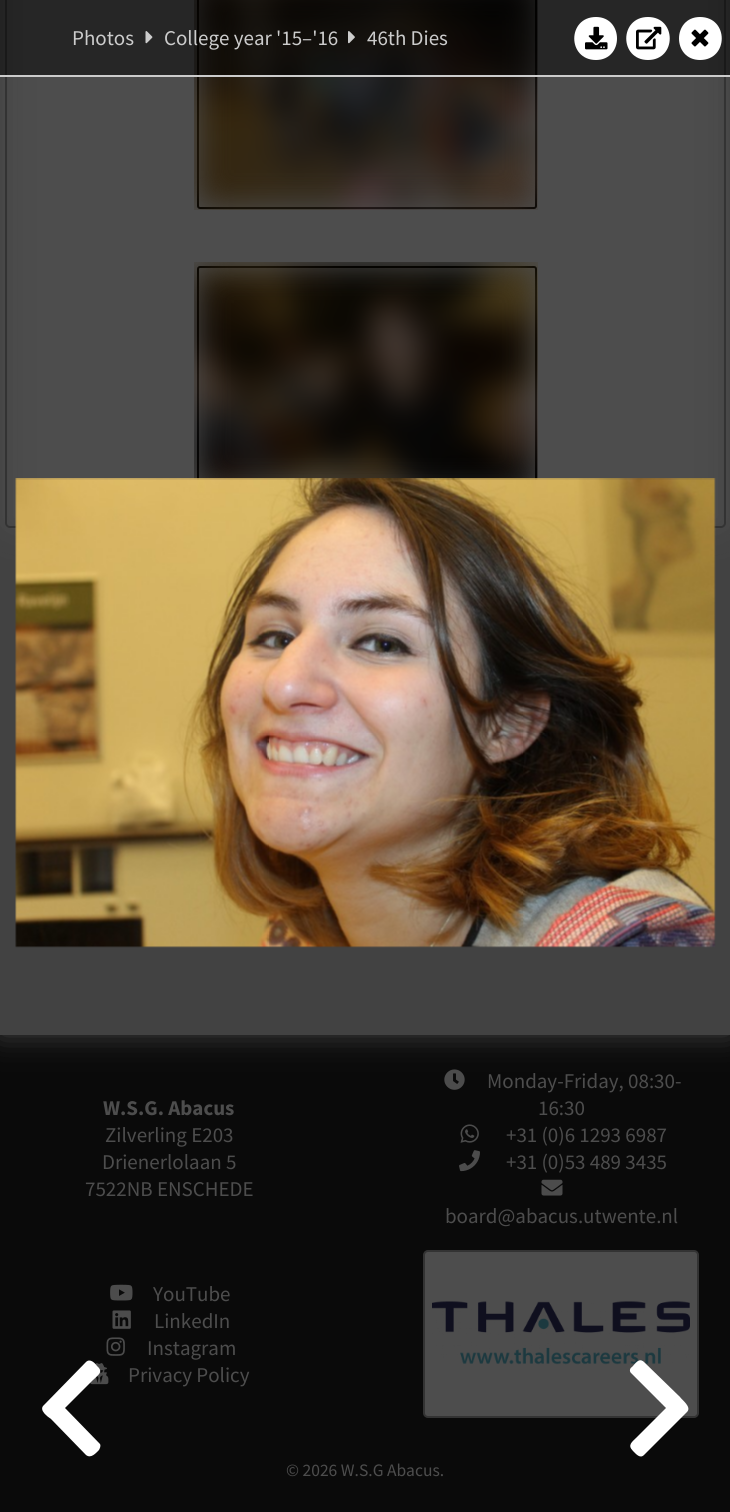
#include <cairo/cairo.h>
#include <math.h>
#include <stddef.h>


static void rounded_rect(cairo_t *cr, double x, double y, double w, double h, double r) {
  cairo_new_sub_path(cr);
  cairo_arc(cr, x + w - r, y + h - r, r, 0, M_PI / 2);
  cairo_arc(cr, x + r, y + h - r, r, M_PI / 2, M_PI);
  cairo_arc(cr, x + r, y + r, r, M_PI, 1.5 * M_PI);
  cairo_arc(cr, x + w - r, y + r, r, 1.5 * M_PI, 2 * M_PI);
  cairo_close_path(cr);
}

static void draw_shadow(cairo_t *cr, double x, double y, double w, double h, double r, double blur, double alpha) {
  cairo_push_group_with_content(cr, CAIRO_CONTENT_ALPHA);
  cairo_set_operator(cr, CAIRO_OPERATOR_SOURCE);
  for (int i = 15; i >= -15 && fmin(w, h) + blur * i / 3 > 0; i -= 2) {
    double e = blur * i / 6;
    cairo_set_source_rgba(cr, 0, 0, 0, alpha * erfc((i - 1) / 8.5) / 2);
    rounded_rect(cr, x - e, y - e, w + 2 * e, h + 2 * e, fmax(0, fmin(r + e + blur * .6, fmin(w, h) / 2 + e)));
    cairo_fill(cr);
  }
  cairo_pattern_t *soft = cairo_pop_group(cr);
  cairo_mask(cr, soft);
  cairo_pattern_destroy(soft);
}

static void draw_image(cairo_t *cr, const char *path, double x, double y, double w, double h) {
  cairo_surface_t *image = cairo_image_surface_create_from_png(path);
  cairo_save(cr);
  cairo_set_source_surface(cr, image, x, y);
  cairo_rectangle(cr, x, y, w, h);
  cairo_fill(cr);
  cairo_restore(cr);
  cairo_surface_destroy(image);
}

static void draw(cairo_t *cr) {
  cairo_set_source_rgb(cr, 66 / 255.0, 66 / 255.0, 66 / 255.0);
  cairo_paint(cr);
  cairo_set_source_rgb(cr, 10 / 255.0, 10 / 255.0, 10 / 255.0);
  cairo_rectangle(cr, 0, 1035, 730, 477);
  cairo_fill(cr);
  draw_image(cr, "images/9.png", 444, 1069, 21, 21);
  cairo_set_source_rgb(cr, 66 / 255.0, 66 / 255.0, 66 / 255.0);
  draw_shadow(cr, 0, -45, 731, 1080, 0, 15, 1);
  cairo_set_source_rgb(cr, 77 / 255.0, 77 / 255.0, 77 / 255.0);
  draw_shadow(cr, 5, -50, 721, 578, 5, 15, 1);
  rounded_rect(cr, 6, -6, 719, 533, 4);
  cairo_set_source_rgb(cr, 51 / 255.0, 51 / 255.0, 51 / 255.0);
  cairo_stroke(cr);
  rounded_rect(cr, 198, -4, 338, 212, 2);
  cairo_set_source_rgb(cr, 0, 0, 0);
  cairo_stroke(cr);
  draw_image(cr, "images/1.png", 194, 0, 344, 210);
  rounded_rect(cr, 198, 267, 338, 226, 2);
  cairo_stroke(cr);
  draw_image(cr, "images/2.png", 194, 262, 344, 218);
  cairo_set_source_rgba(cr, 0, 0, 0, 0.5);
  cairo_rectangle(cr, 0, 0, 730, 75);
  cairo_fill(cr);
  cairo_set_source_rgb(cr, 204 / 255.0, 204 / 255.0, 204 / 255.0);
  cairo_rectangle(cr, 0, 75, 730, 2);
  cairo_fill(cr);
  draw_image(cr, "images/3.png", 145, 31, 8, 13);
  draw_image(cr, "images/4.png", 348, 31, 7, 13);
  cairo_set_source_rgb(cr, 1, 1, 1);
  cairo_new_path(cr);
  cairo_move_to(cr, 596, 17);
  cairo_curve_to(cr, 567, 17, 567, 60, 596, 60);
  cairo_curve_to(cr, 624, 60, 624, 17, 596, 17);
  cairo_close_path(cr);
  cairo_fill(cr);
  draw_image(cr, "images/5.png", 585, 26, 23, 24);
  cairo_new_path(cr);
  cairo_move_to(cr, 648, 17);
  cairo_curve_to(cr, 619, 17, 619, 60, 648, 60);
  cairo_curve_to(cr, 677, 60, 677, 17, 648, 17);
  cairo_close_path(cr);
  cairo_fill(cr);
  draw_image(cr, "images/6.png", 636, 26, 26, 24);
  cairo_new_path(cr);
  cairo_move_to(cr, 700, 17);
  cairo_curve_to(cr, 672, 17, 672, 60, 700, 60);
  cairo_curve_to(cr, 729, 60, 729, 17, 700, 17);
  cairo_close_path(cr);
  cairo_fill(cr);
  draw_image(cr, "images/7.png", 691, 29, 18, 18);
  draw_image(cr, "images/8.png", 15, 478, 701, 470);
  draw_image(cr, "images/16.png", 90, 1363, 19, 22);
  cairo_new_path(cr);
  cairo_move_to(cr, 44, 1405);
  cairo_line_to(cr, 86, 1362);
  cairo_curve_to(cr, 90, 1358, 95, 1363, 97, 1366);
  cairo_curve_to(cr, 104, 1372, 98, 1375, 93, 1380);
  cairo_line_to(cr, 65, 1408);
  cairo_line_to(cr, 100, 1444);
  cairo_curve_to(cr, 101, 1446, 100, 1448, 99, 1450);
  cairo_curve_to(cr, 96, 1453, 91, 1459, 86, 1455);
  cairo_line_to(cr, 51, 1419);
  cairo_curve_to(cr, 48, 1417, 38, 1410, 44, 1405);
  cairo_close_path(cr);
  cairo_fill(cr);
  cairo_set_source_rgb(cr, 77 / 255.0, 77 / 255.0, 77 / 255.0);
  rounded_rect(cr, 424, 1251, 274, 166, 4);
  cairo_fill_preserve(cr);
  cairo_set_source_rgb(cr, 51 / 255.0, 51 / 255.0, 51 / 255.0);
  cairo_stroke(cr);
  draw_image(cr, "images/17.png", 432, 1301, 258, 64);
  cairo_set_source_rgb(cr, 1, 1, 1);
  cairo_new_path(cr);
  cairo_move_to(cr, 687, 1412);
  cairo_line_to(cr, 644, 1455);
  cairo_curve_to(cr, 640, 1459, 636, 1454, 633, 1451);
  cairo_curve_to(cr, 627, 1445, 632, 1442, 637, 1437);
  cairo_line_to(cr, 666, 1408);
  cairo_line_to(cr, 631, 1373);
  cairo_curve_to(cr, 629, 1371, 630, 1368, 632, 1367);
  cairo_curve_to(cr, 635, 1364, 639, 1357, 644, 1362);
  cairo_line_to(cr, 680, 1397);
  cairo_curve_to(cr, 682, 1400, 692, 1407, 687, 1412);
  cairo_close_path(cr);
  cairo_fill(cr);
  draw_image(cr, "images/10.png", 460, 1124, 19, 19);
  draw_image(cr, "images/11.png", 459, 1150, 21, 22);
  draw_image(cr, "images/12.png", 541, 1179, 22, 17);
  draw_image(cr, "images/13.png", 110, 1284, 23, 17);
  draw_image(cr, "images/14.png", 112, 1310, 19, 19);
  draw_image(cr, "images/15.png", 106, 1337, 19, 19);
  cairo_select_font_face(cr, "Source Sans Pro", CAIRO_FONT_SLANT_NORMAL, CAIRO_FONT_WEIGHT_NORMAL);
  cairo_set_font_size(cr, 21);
  cairo_set_source_rgb(cr, 204 / 255.0, 204 / 255.0, 204 / 255.0);
  cairo_move_to(cr, 72, 45);
  cairo_show_text(cr, "Photos");
  cairo_move_to(cr, 164, 45);
  cairo_show_text(cr, "College year '15–'16");
  cairo_move_to(cr, 367, 45);
  cairo_show_text(cr, "46th Dies");
  cairo_select_font_face(cr, "Source Sans Pro", CAIRO_FONT_SLANT_NORMAL, CAIRO_FONT_WEIGHT_BOLD);
  cairo_set_source_rgb(cr, 77 / 255.0, 77 / 255.0, 77 / 255.0);
  cairo_move_to(cr, 103, 1115);
  cairo_show_text(cr, "W.S.G. Abacus");
  cairo_select_font_face(cr, "Source Sans Pro", CAIRO_FONT_SLANT_NORMAL, CAIRO_FONT_WEIGHT_NORMAL);
  cairo_move_to(cr, 105, 1142);
  cairo_show_text(cr, "Zilverling E203");
  cairo_move_to(cr, 102, 1169);
  cairo_show_text(cr, "Drienerlolaan 5");
  cairo_move_to(cr, 85, 1196);
  cairo_show_text(cr, "7522NB ENSCHEDE");
  cairo_move_to(cr, 487, 1088);
  cairo_show_text(cr, "Monday-Friday, 08:30-");
  cairo_move_to(cr, 538, 1115);
  cairo_show_text(cr, "16:30");
  cairo_move_to(cr, 506, 1142);
  cairo_show_text(cr, "+31 (0)6 1293 6987");
  cairo_move_to(cr, 506, 1169);
  cairo_show_text(cr, "+31 (0)53 489 3435");
  cairo_move_to(cr, 445, 1223);
  cairo_show_text(cr, "board@abacus.utwente.nl");
  cairo_move_to(cr, 153, 1301);
  cairo_show_text(cr, "YouTube");
  cairo_move_to(cr, 154, 1328);
  cairo_show_text(cr, "LinkedIn");
  cairo_move_to(cr, 147, 1355);
  cairo_show_text(cr, "Instagram");
  cairo_move_to(cr, 128, 1382);
  cairo_show_text(cr, "Privacy Policy");
  cairo_set_font_size(cr, 17.5);
  cairo_move_to(cr, 286, 1476);
  cairo_show_text(cr, "© 2026 W.S.G Abacus.");
}

int main(void) {
  cairo_surface_t *surface = cairo_image_surface_create(CAIRO_FORMAT_RGB24, 730, 1512);
  cairo_t *cr = cairo_create(surface);
  cairo_font_options_t *options = cairo_font_options_create();
  cairo_font_options_set_hint_metrics(options, CAIRO_HINT_METRICS_OFF);
  cairo_font_options_set_hint_style(options, CAIRO_HINT_STYLE_NONE);
  cairo_set_font_options(cr, options);
  cairo_set_miter_limit(cr, 4);
  draw(cr);
  cairo_surface_write_to_png(surface, "out.png");
  cairo_font_options_destroy(options);
  cairo_destroy(cr);
  cairo_surface_destroy(surface);
  return 0;
}
